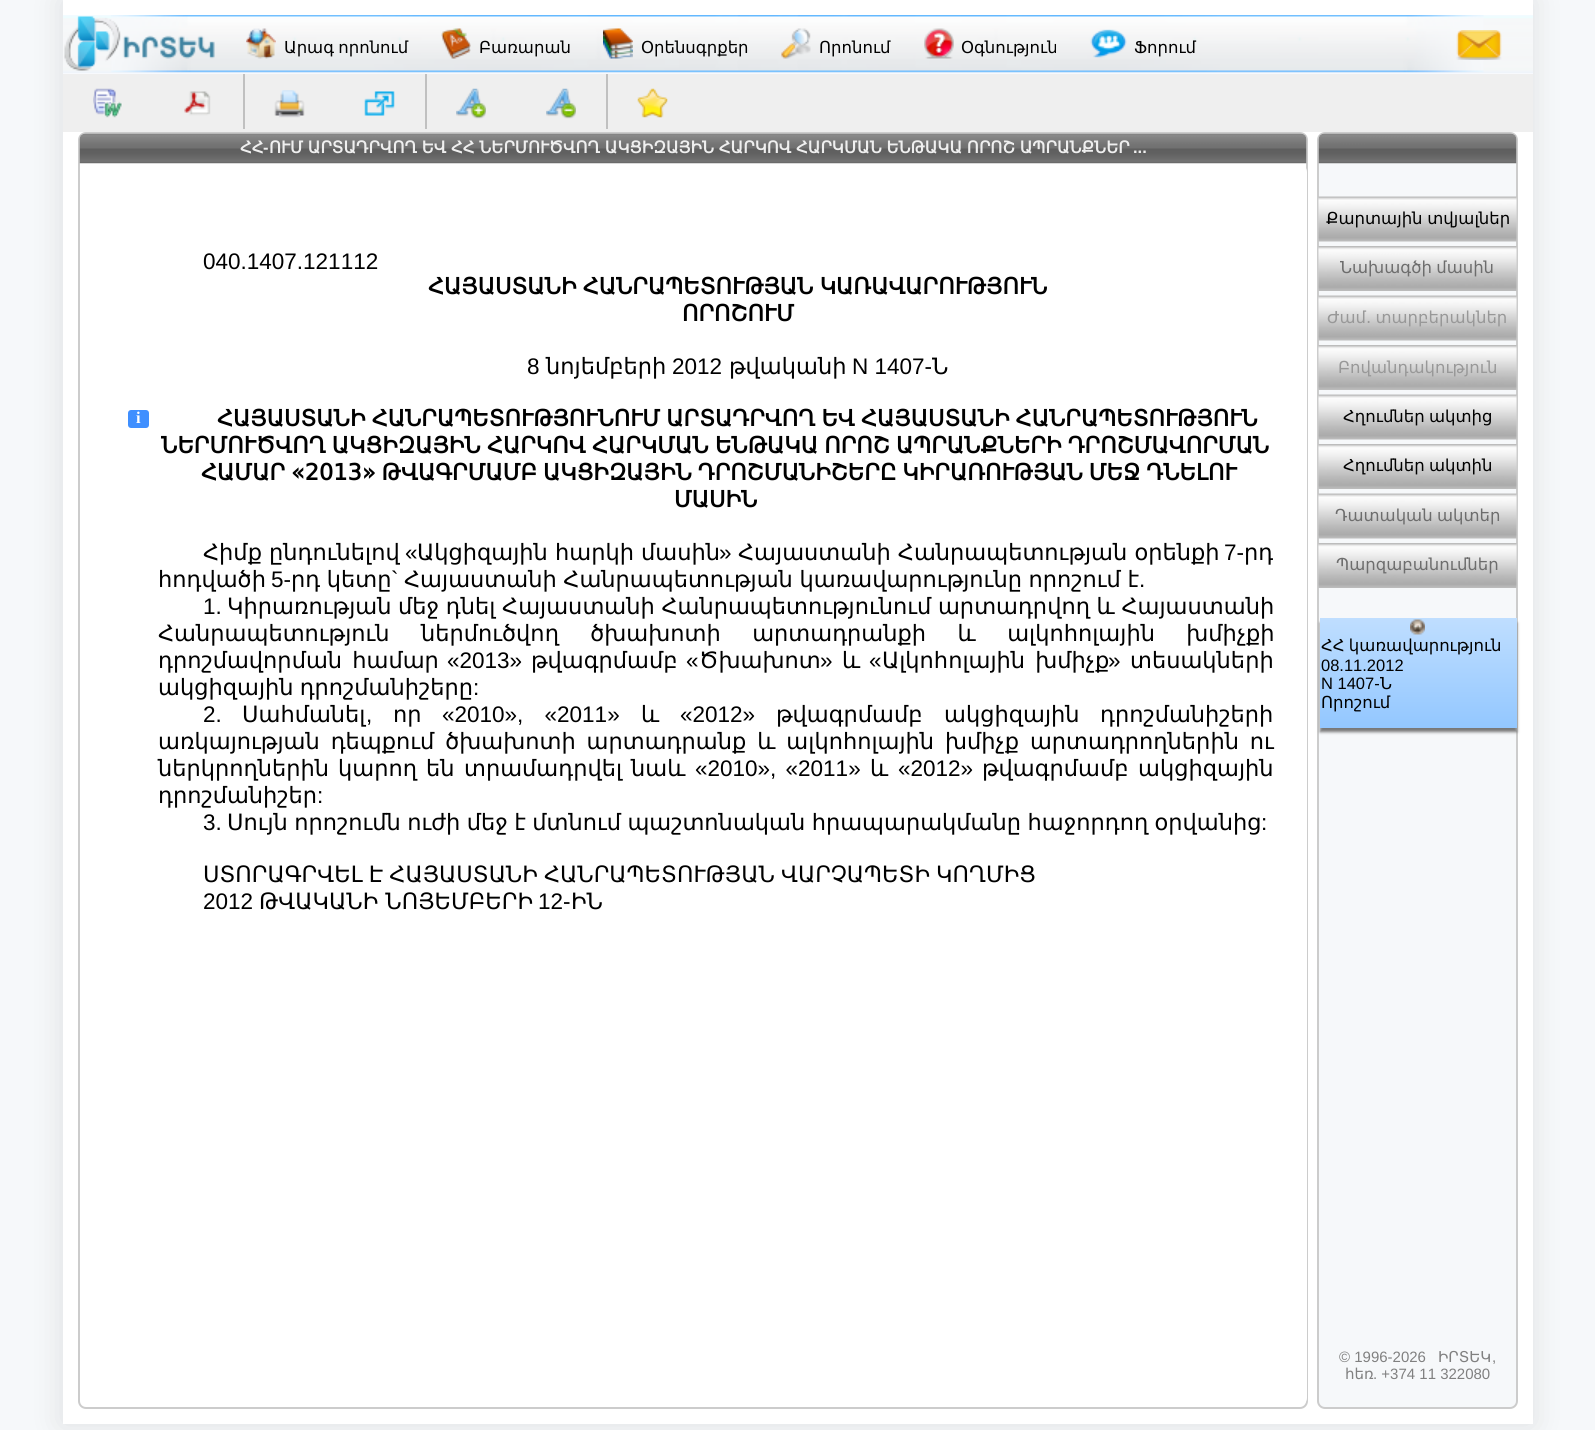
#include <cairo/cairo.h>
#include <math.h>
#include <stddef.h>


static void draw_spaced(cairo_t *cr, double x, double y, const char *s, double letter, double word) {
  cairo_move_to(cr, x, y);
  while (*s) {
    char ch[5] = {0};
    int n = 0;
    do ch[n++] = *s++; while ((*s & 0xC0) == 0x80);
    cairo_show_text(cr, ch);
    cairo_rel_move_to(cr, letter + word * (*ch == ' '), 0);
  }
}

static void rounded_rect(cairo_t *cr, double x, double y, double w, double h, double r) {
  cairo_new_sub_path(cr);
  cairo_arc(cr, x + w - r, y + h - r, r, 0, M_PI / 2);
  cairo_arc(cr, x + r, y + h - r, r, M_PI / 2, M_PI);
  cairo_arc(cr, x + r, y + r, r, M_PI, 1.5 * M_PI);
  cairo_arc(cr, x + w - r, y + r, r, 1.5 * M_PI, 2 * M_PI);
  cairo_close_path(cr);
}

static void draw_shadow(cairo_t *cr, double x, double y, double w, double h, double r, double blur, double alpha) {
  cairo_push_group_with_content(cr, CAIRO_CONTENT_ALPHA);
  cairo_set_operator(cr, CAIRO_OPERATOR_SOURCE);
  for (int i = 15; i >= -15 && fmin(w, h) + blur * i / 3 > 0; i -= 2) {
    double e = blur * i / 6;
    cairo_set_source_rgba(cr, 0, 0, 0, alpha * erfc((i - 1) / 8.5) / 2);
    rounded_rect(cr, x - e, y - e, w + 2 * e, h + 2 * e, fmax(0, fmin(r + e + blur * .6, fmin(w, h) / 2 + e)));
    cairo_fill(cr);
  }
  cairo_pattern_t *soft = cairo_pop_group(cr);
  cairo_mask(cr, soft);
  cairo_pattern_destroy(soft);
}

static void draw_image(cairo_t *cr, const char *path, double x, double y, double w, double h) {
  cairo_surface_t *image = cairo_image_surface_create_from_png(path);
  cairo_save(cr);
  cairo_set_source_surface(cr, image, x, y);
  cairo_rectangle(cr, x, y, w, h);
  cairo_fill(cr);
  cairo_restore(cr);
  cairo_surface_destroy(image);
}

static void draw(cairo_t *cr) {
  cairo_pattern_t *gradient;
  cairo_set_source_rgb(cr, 246 / 255.0, 248 / 255.0, 250 / 255.0);
  cairo_paint(cr);
  cairo_set_source_rgb(cr, 170 / 255.0, 170 / 255.0, 170 / 255.0);
  draw_shadow(cr, 62, 0, 1470, 1424, 0, 15, 0.32);
  cairo_set_source_rgb(cr, 1, 1, 1);
  cairo_rectangle(cr, 63, 0, 1470, 1424);
  cairo_fill(cr);
  draw_image(cr, "images/1.png", 63, 15, 1470, 59);
  draw_image(cr, "images/2.png", 64, 16, 151, 55);
  draw_image(cr, "images/3.png", 246, 28, 30, 31);
  draw_image(cr, "images/4.png", 441, 28, 30, 31);
  draw_image(cr, "images/5.png", 603, 28, 30, 31);
  draw_image(cr, "images/6.png", 781, 28, 30, 31);
  draw_image(cr, "images/7.png", 924, 28, 30, 31);
  draw_image(cr, "images/8.png", 1090, 29, 37, 29);
  draw_image(cr, "images/9.png", 1456, 30, 46, 30);
  cairo_set_source_rgb(cr, 239 / 255.0, 239 / 255.0, 239 / 255.0);
  cairo_rectangle(cr, 63, 74, 1470, 58);
  cairo_fill(cr);
  draw_image(cr, "images/10.png", 93, 88, 30, 30);
  draw_image(cr, "images/11.png", 184, 91, 27, 25);
  cairo_set_source_rgb(cr, 192 / 255.0, 192 / 255.0, 192 / 255.0);
  cairo_rectangle(cr, 243, 74, 2, 55);
  cairo_fill(cr);
  draw_image(cr, "images/12.png", 274, 90, 31, 28);
  draw_image(cr, "images/13.png", 364, 91, 31, 25);
  cairo_rectangle(cr, 425, 74, 2, 55);
  cairo_fill(cr);
  draw_image(cr, "images/14.png", 456, 88, 30, 31);
  draw_image(cr, "images/15.png", 546, 88, 30, 31);
  cairo_rectangle(cr, 606, 74, 2, 55);
  cairo_fill(cr);
  draw_image(cr, "images/16.png", 637, 88, 31, 30);
  rounded_rect(cr, 79, 133, 1228, 1275, 7);
  cairo_set_source_rgb(cr, 204 / 255.0, 204 / 255.0, 204 / 255.0);
  cairo_stroke(cr);
  draw_image(cr, "images/17.png", 79, 133, 1228, 31);
  cairo_set_source_rgb(cr, 1, 1, 1);
  rounded_rect(cr, 80, 164, 1227, 1242, 8);
  cairo_fill(cr);
  cairo_set_source_rgb(cr, 63 / 255.0, 143 / 255.0, 1);
  rounded_rect(cr, 128, 410, 21, 18, 3);
  cairo_fill(cr);
  cairo_set_source_rgb(cr, 246 / 255.0, 248 / 255.0, 250 / 255.0);
  rounded_rect(cr, 1318, 133, 199, 1275, 7);
  cairo_fill_preserve(cr);
  cairo_set_source_rgb(cr, 204 / 255.0, 204 / 255.0, 204 / 255.0);
  cairo_stroke(cr);
  draw_image(cr, "images/18.png", 1318, 133, 199, 31);
  draw_image(cr, "images/19.png", 1318, 196, 199, 46);
  draw_image(cr, "images/20.png", 1318, 246, 199, 45);
  draw_image(cr, "images/21.png", 1318, 295, 199, 46);
  draw_image(cr, "images/22.png", 1318, 345, 199, 45);
  draw_image(cr, "images/23.png", 1318, 394, 199, 46);
  draw_image(cr, "images/24.png", 1318, 444, 199, 45);
  draw_image(cr, "images/25.png", 1318, 493, 199, 46);
  draw_image(cr, "images/26.png", 1318, 543, 199, 45);
  cairo_set_source_rgb(cr, 119 / 255.0, 119 / 255.0, 119 / 255.0);
  draw_shadow(cr, 1320, 623, 197, 109, 0, 1.5, 1);
  gradient = cairo_pattern_create_linear(1418, 618, 1418, 728);
  cairo_pattern_add_color_stop_rgba(gradient, 0, 191 / 255.0, 222 / 255.0, 1, 1);
  cairo_pattern_add_color_stop_rgba(gradient, 1, 147 / 255.0, 199 / 255.0, 1, 1);
  cairo_set_source(cr, gradient);
  cairo_pattern_destroy(gradient);
  cairo_rectangle(cr, 1320, 618, 197, 110);
  cairo_fill(cr);
  draw_image(cr, "images/27.png", 1410, 619, 15, 16);
  cairo_select_font_face(cr, "DejaVu Sans", CAIRO_FONT_SLANT_NORMAL, CAIRO_FONT_WEIGHT_NORMAL);
  cairo_set_font_size(cr, 16.5);
  cairo_set_source_rgb(cr, 0, 0, 0);
  draw_spaced(cr, 284, 53, "Արագ որոնում", 0, -1);
  cairo_move_to(cr, 479, 53);
  cairo_show_text(cr, "Բառարան");
  cairo_move_to(cr, 641, 53);
  cairo_show_text(cr, "Օրենսգրքեր");
  cairo_move_to(cr, 819, 53);
  cairo_show_text(cr, "Որոնում");
  cairo_move_to(cr, 961, 53);
  cairo_show_text(cr, "Օգնություն");
  cairo_move_to(cr, 1134, 53);
  cairo_show_text(cr, "Ֆորում");
  cairo_select_font_face(cr, "DejaVu Sans", CAIRO_FONT_SLANT_NORMAL, CAIRO_FONT_WEIGHT_BOLD);
  cairo_set_source_rgb(cr, 239 / 255.0, 239 / 255.0, 239 / 255.0);
  cairo_move_to(cr, 240, 153);
  cairo_show_text(cr, "ՀՀ");
  cairo_select_font_face(cr, "Liberation Sans", CAIRO_FONT_SLANT_NORMAL, CAIRO_FONT_WEIGHT_BOLD);
  cairo_move_to(cr, 263, 153);
  cairo_show_text(cr, "-");
  cairo_select_font_face(cr, "DejaVu Sans", CAIRO_FONT_SLANT_NORMAL, CAIRO_FONT_WEIGHT_BOLD);
  draw_spaced(cr, 269, 153, "ՈՒՄ ԱՐՏԱԴՐՎՈՂ ԵՎ ՀՀ ՆԵՐՄՈՒԾՎՈՂ ԱԿՑԻԶԱՅԻՆ ՀԱՐԿՈՎ ՀԱՐԿՄԱՆ ԵՆԹԱԿԱ ՈՐՈՇ ԱՊՐԱՆՔՆԵՐ", 0, -0.5);
  cairo_select_font_face(cr, "Liberation Sans", CAIRO_FONT_SLANT_NORMAL, CAIRO_FONT_WEIGHT_BOLD);
  cairo_move_to(cr, 1133, 153);
  cairo_show_text(cr, "...");
  cairo_select_font_face(cr, "Liberation Sans", CAIRO_FONT_SLANT_NORMAL, CAIRO_FONT_WEIGHT_NORMAL);
  cairo_set_font_size(cr, 22.5);
  cairo_set_source_rgb(cr, 0, 0, 0);
  cairo_move_to(cr, 203, 269);
  cairo_show_text(cr, "040.1407.121112");
  cairo_select_font_face(cr, "DejaVu Sans", CAIRO_FONT_SLANT_NORMAL, CAIRO_FONT_WEIGHT_BOLD);
  draw_spaced(cr, 428, 294, "ՀԱՅԱՍՏԱՆԻ ՀԱՆՐԱՊԵՏՈՒԹՅԱՆ ԿԱՌԱՎԱՐՈՒԹՅՈՒՆ", 0, -1);
  cairo_move_to(cr, 682, 321);
  cairo_show_text(cr, "ՈՐՈՇՈՒՄ");
  cairo_select_font_face(cr, "Liberation Sans", CAIRO_FONT_SLANT_NORMAL, CAIRO_FONT_WEIGHT_NORMAL);
  cairo_move_to(cr, 527, 374);
  cairo_show_text(cr, "8");
  cairo_select_font_face(cr, "DejaVu Sans", CAIRO_FONT_SLANT_NORMAL, CAIRO_FONT_WEIGHT_NORMAL);
  cairo_move_to(cr, 546, 374);
  cairo_show_text(cr, "նոյեմբերի");
  cairo_select_font_face(cr, "Liberation Sans", CAIRO_FONT_SLANT_NORMAL, CAIRO_FONT_WEIGHT_NORMAL);
  cairo_move_to(cr, 672, 374);
  cairo_show_text(cr, "2012");
  cairo_select_font_face(cr, "DejaVu Sans", CAIRO_FONT_SLANT_NORMAL, CAIRO_FONT_WEIGHT_NORMAL);
  cairo_move_to(cr, 729, 374);
  cairo_show_text(cr, "թվականի");
  cairo_select_font_face(cr, "Liberation Sans", CAIRO_FONT_SLANT_NORMAL, CAIRO_FONT_WEIGHT_NORMAL);
  cairo_move_to(cr, 852, 374);
  cairo_show_text(cr, "N 1407-");
  cairo_select_font_face(cr, "DejaVu Sans", CAIRO_FONT_SLANT_NORMAL, CAIRO_FONT_WEIGHT_NORMAL);
  cairo_move_to(cr, 932, 374);
  cairo_show_text(cr, "Ն");
  cairo_select_font_face(cr, "Liberation Serif", CAIRO_FONT_SLANT_NORMAL, CAIRO_FONT_WEIGHT_BOLD);
  cairo_set_font_size(cr, 16.5);
  cairo_set_source_rgb(cr, 1, 1, 1);
  cairo_move_to(cr, 136, 423);
  cairo_show_text(cr, "i");
  cairo_select_font_face(cr, "DejaVu Sans", CAIRO_FONT_SLANT_NORMAL, CAIRO_FONT_WEIGHT_BOLD);
  cairo_set_font_size(cr, 22.5);
  cairo_set_source_rgb(cr, 0, 0, 0);
  draw_spaced(cr, 217, 426, "ՀԱՅԱՍՏԱՆԻ ՀԱՆՐԱՊԵՏՈՒԹՅՈՒՆՈՒՄ ԱՐՏԱԴՐՎՈՂ ԵՎ ՀԱՅԱՍՏԱՆԻ ՀԱՆՐԱՊԵՏՈՒԹՅՈՒՆ", 0, -1);
  draw_spaced(cr, 161, 453, "ՆԵՐՄՈՒԾՎՈՂ ԱԿՑԻԶԱՅԻՆ ՀԱՐԿՈՎ ՀԱՐԿՄԱՆ ԵՆԹԱԿԱ ՈՐՈՇ ԱՊՐԱՆՔՆԵՐԻ ԴՐՈՇՄԱՎՈՐՄԱՆ", 0, -1);
  draw_spaced(cr, 201, 480, "ՀԱՄԱՐ «2013» ԹՎԱԳՐՄԱՄԲ ԱԿՑԻԶԱՅԻՆ ԴՐՈՇՄԱՆԻՇԵՐԸ ԿԻՐԱՌՈՒԹՅԱՆ ՄԵՋ ԴՆԵԼՈՒ", 0, -1.25);
  cairo_move_to(cr, 674, 507);
  cairo_show_text(cr, "ՄԱՍԻՆ");
  cairo_select_font_face(cr, "DejaVu Sans", CAIRO_FONT_SLANT_NORMAL, CAIRO_FONT_WEIGHT_NORMAL);
  cairo_move_to(cr, 203, 560);
  cairo_show_text(cr, "Հիմք ընդունելով");
  cairo_select_font_face(cr, "Liberation Sans", CAIRO_FONT_SLANT_NORMAL, CAIRO_FONT_WEIGHT_NORMAL);
  cairo_move_to(cr, 405, 560);
  cairo_show_text(cr, "«");
  cairo_select_font_face(cr, "DejaVu Sans", CAIRO_FONT_SLANT_NORMAL, CAIRO_FONT_WEIGHT_NORMAL);
  cairo_move_to(cr, 417, 560);
  cairo_show_text(cr, "Ակցիզային հարկի մասին");
  cairo_select_font_face(cr, "Liberation Sans", CAIRO_FONT_SLANT_NORMAL, CAIRO_FONT_WEIGHT_NORMAL);
  cairo_move_to(cr, 719, 560);
  cairo_show_text(cr, "»");
  cairo_select_font_face(cr, "DejaVu Sans", CAIRO_FONT_SLANT_NORMAL, CAIRO_FONT_WEIGHT_NORMAL);
  cairo_move_to(cr, 738, 560);
  cairo_show_text(cr, "Հայաստանի Հանրապետության օրենքի");
  cairo_select_font_face(cr, "Liberation Sans", CAIRO_FONT_SLANT_NORMAL, CAIRO_FONT_WEIGHT_NORMAL);
  cairo_move_to(cr, 1224, 560);
  cairo_show_text(cr, "7-");
  cairo_select_font_face(cr, "DejaVu Sans", CAIRO_FONT_SLANT_NORMAL, CAIRO_FONT_WEIGHT_NORMAL);
  cairo_move_to(cr, 1244, 560);
  cairo_show_text(cr, "րդ");
  cairo_move_to(cr, 158, 587);
  cairo_show_text(cr, "հոդվածի");
  cairo_select_font_face(cr, "Liberation Sans", CAIRO_FONT_SLANT_NORMAL, CAIRO_FONT_WEIGHT_NORMAL);
  cairo_move_to(cr, 271, 587);
  cairo_show_text(cr, "5-");
  cairo_select_font_face(cr, "DejaVu Sans", CAIRO_FONT_SLANT_NORMAL, CAIRO_FONT_WEIGHT_NORMAL);
  draw_spaced(cr, 291, 587, "րդ կետը", 0, -0.5);
  cairo_select_font_face(cr, "Liberation Sans", CAIRO_FONT_SLANT_NORMAL, CAIRO_FONT_WEIGHT_NORMAL);
  cairo_move_to(cr, 391, 587);
  cairo_show_text(cr, "`");
  cairo_select_font_face(cr, "DejaVu Sans", CAIRO_FONT_SLANT_NORMAL, CAIRO_FONT_WEIGHT_NORMAL);
  draw_spaced(cr, 404, 587, "Հայաստանի Հանրապետության կառավարությունը որոշում է", 0, -0.5);
  cairo_select_font_face(cr, "Liberation Sans", CAIRO_FONT_SLANT_NORMAL, CAIRO_FONT_WEIGHT_NORMAL);
  cairo_move_to(cr, 1139, 587);
  cairo_show_text(cr, ".");
  cairo_move_to(cr, 203, 614);
  cairo_show_text(cr, "1.");
  cairo_select_font_face(cr, "DejaVu Sans", CAIRO_FONT_SLANT_NORMAL, CAIRO_FONT_WEIGHT_NORMAL);
  draw_spaced(cr, 227, 614, "Կիրառության մեջ դնել Հայաստանի Հանրապետությունում արտադրվող և Հայաստանի", 0, -0.5);
  draw_spaced(cr, 158, 641, "Հանրապետություն ներմուծվող ծխախոտի արտադրանքի և ալկոհոլային խմիչքի", 0, 24.25);
  draw_spaced(cr, 158, 668, "դրոշմավորման համար", 0, 3);
  cairo_select_font_face(cr, "Liberation Sans", CAIRO_FONT_SLANT_NORMAL, CAIRO_FONT_WEIGHT_NORMAL);
  cairo_move_to(cr, 447, 668);
  cairo_show_text(cr, "«2013»");
  cairo_select_font_face(cr, "DejaVu Sans", CAIRO_FONT_SLANT_NORMAL, CAIRO_FONT_WEIGHT_NORMAL);
  cairo_move_to(cr, 531, 668);
  cairo_show_text(cr, "թվագրմամբ");
  cairo_select_font_face(cr, "Liberation Sans", CAIRO_FONT_SLANT_NORMAL, CAIRO_FONT_WEIGHT_NORMAL);
  cairo_move_to(cr, 686, 668);
  cairo_show_text(cr, "«");
  cairo_select_font_face(cr, "DejaVu Sans", CAIRO_FONT_SLANT_NORMAL, CAIRO_FONT_WEIGHT_NORMAL);
  cairo_move_to(cr, 699, 668);
  cairo_show_text(cr, "Ծխախոտ");
  cairo_select_font_face(cr, "Liberation Sans", CAIRO_FONT_SLANT_NORMAL, CAIRO_FONT_WEIGHT_NORMAL);
  cairo_move_to(cr, 820, 668);
  cairo_show_text(cr, "»");
  cairo_select_font_face(cr, "DejaVu Sans", CAIRO_FONT_SLANT_NORMAL, CAIRO_FONT_WEIGHT_NORMAL);
  cairo_move_to(cr, 842, 668);
  cairo_show_text(cr, "և");
  cairo_select_font_face(cr, "Liberation Sans", CAIRO_FONT_SLANT_NORMAL, CAIRO_FONT_WEIGHT_NORMAL);
  cairo_move_to(cr, 869, 668);
  cairo_show_text(cr, "«");
  cairo_select_font_face(cr, "DejaVu Sans", CAIRO_FONT_SLANT_NORMAL, CAIRO_FONT_WEIGHT_NORMAL);
  draw_spaced(cr, 882, 668, "Ալկոհոլային խմիչք", 0, 3);
  cairo_select_font_face(cr, "Liberation Sans", CAIRO_FONT_SLANT_NORMAL, CAIRO_FONT_WEIGHT_NORMAL);
  cairo_move_to(cr, 1108, 668);
  cairo_show_text(cr, "»");
  cairo_select_font_face(cr, "DejaVu Sans", CAIRO_FONT_SLANT_NORMAL, CAIRO_FONT_WEIGHT_NORMAL);
  cairo_move_to(cr, 1130, 668);
  cairo_show_text(cr, "տեսակների");
  draw_spaced(cr, 158, 695, "ակցիզային դրոշմանիշերը", 0, -1);
  cairo_select_font_face(cr, "Liberation Sans", CAIRO_FONT_SLANT_NORMAL, CAIRO_FONT_WEIGHT_NORMAL);
  cairo_move_to(cr, 473, 695);
  cairo_show_text(cr, ":");
  cairo_move_to(cr, 203, 722);
  cairo_show_text(cr, "2.");
  cairo_select_font_face(cr, "DejaVu Sans", CAIRO_FONT_SLANT_NORMAL, CAIRO_FONT_WEIGHT_NORMAL);
  cairo_move_to(cr, 242, 722);
  cairo_show_text(cr, "Սահմանել");
  cairo_select_font_face(cr, "Liberation Sans", CAIRO_FONT_SLANT_NORMAL, CAIRO_FONT_WEIGHT_NORMAL);
  cairo_move_to(cr, 366, 722);
  cairo_show_text(cr, ",");
  cairo_select_font_face(cr, "DejaVu Sans", CAIRO_FONT_SLANT_NORMAL, CAIRO_FONT_WEIGHT_NORMAL);
  cairo_move_to(cr, 393, 722);
  cairo_show_text(cr, "որ");
  cairo_select_font_face(cr, "Liberation Sans", CAIRO_FONT_SLANT_NORMAL, CAIRO_FONT_WEIGHT_NORMAL);
  draw_spaced(cr, 442, 722, "«2010», «2011»", 0, 15);
  cairo_select_font_face(cr, "DejaVu Sans", CAIRO_FONT_SLANT_NORMAL, CAIRO_FONT_WEIGHT_NORMAL);
  cairo_move_to(cr, 641, 722);
  cairo_show_text(cr, "և");
  cairo_select_font_face(cr, "Liberation Sans", CAIRO_FONT_SLANT_NORMAL, CAIRO_FONT_WEIGHT_NORMAL);
  cairo_move_to(cr, 680, 722);
  cairo_show_text(cr, "«2012»");
  cairo_select_font_face(cr, "DejaVu Sans", CAIRO_FONT_SLANT_NORMAL, CAIRO_FONT_WEIGHT_NORMAL);
  cairo_move_to(cr, 776, 722);
  cairo_show_text(cr, "թվագրմամբ");
  cairo_move_to(cr, 944, 722);
  cairo_show_text(cr, "ակցիզային");
  cairo_move_to(cr, 1100, 722);
  cairo_show_text(cr, "դրոշմանիշերի");
  draw_spaced(cr, 158, 749, "առկայության դեպքում ծխախոտի արտադրանք և ալկոհոլային խմիչք արտադրողներին ու", 0, 3.75);
  cairo_move_to(cr, 158, 776);
  cairo_show_text(cr, "ներկրողներին");
  cairo_move_to(cr, 338, 776);
  cairo_show_text(cr, "կարող");
  cairo_move_to(cr, 426, 776);
  cairo_show_text(cr, "են");
  cairo_move_to(cr, 464, 776);
  cairo_show_text(cr, "տրամադրվել");
  cairo_move_to(cr, 631, 776);
  cairo_show_text(cr, "նաև");
  cairo_select_font_face(cr, "Liberation Sans", CAIRO_FONT_SLANT_NORMAL, CAIRO_FONT_WEIGHT_NORMAL);
  draw_spaced(cr, 695, 776, "«2010», «2011»", 0, 3);
  cairo_select_font_face(cr, "DejaVu Sans", CAIRO_FONT_SLANT_NORMAL, CAIRO_FONT_WEIGHT_NORMAL);
  cairo_move_to(cr, 870, 776);
  cairo_show_text(cr, "և");
  cairo_select_font_face(cr, "Liberation Sans", CAIRO_FONT_SLANT_NORMAL, CAIRO_FONT_WEIGHT_NORMAL);
  cairo_move_to(cr, 898, 776);
  cairo_show_text(cr, "«2012»");
  cairo_select_font_face(cr, "DejaVu Sans", CAIRO_FONT_SLANT_NORMAL, CAIRO_FONT_WEIGHT_NORMAL);
  cairo_move_to(cr, 982, 776);
  cairo_show_text(cr, "թվագրմամբ");
  cairo_move_to(cr, 1138, 776);
  cairo_show_text(cr, "ակցիզային");
  cairo_move_to(cr, 158, 803);
  cairo_show_text(cr, "դրոշմանիշեր");
  cairo_select_font_face(cr, "Liberation Sans", CAIRO_FONT_SLANT_NORMAL, CAIRO_FONT_WEIGHT_NORMAL);
  cairo_move_to(cr, 317, 803);
  cairo_show_text(cr, ":");
  cairo_move_to(cr, 203, 830);
  cairo_show_text(cr, "3.");
  cairo_select_font_face(cr, "DejaVu Sans", CAIRO_FONT_SLANT_NORMAL, CAIRO_FONT_WEIGHT_NORMAL);
  draw_spaced(cr, 227, 830, "Սույն որոշումն ուժի մեջ է մտնում պաշտոնական հրապարակմանը հաջորդող օրվանից", 0, -0.75);
  cairo_select_font_face(cr, "Liberation Sans", CAIRO_FONT_SLANT_NORMAL, CAIRO_FONT_WEIGHT_NORMAL);
  cairo_move_to(cr, 1261, 830);
  cairo_show_text(cr, ":");
  cairo_select_font_face(cr, "DejaVu Sans", CAIRO_FONT_SLANT_NORMAL, CAIRO_FONT_WEIGHT_NORMAL);
  draw_spaced(cr, 203, 882, "ՍՏՈՐԱԳՐՎԵԼ Է ՀԱՅԱՍՏԱՆԻ ՀԱՆՐԱՊԵՏՈՒԹՅԱՆ ՎԱՐՉԱՊԵՏԻ ԿՈՂՄԻՑ", 0, -1);
  cairo_select_font_face(cr, "Liberation Sans", CAIRO_FONT_SLANT_NORMAL, CAIRO_FONT_WEIGHT_NORMAL);
  cairo_move_to(cr, 203, 909);
  cairo_show_text(cr, "2012");
  cairo_select_font_face(cr, "DejaVu Sans", CAIRO_FONT_SLANT_NORMAL, CAIRO_FONT_WEIGHT_NORMAL);
  cairo_move_to(cr, 259, 909);
  cairo_show_text(cr, "ԹՎԱԿԱՆԻ ՆՈՅԵՄԲԵՐԻ");
  cairo_select_font_face(cr, "Liberation Sans", CAIRO_FONT_SLANT_NORMAL, CAIRO_FONT_WEIGHT_NORMAL);
  cairo_move_to(cr, 538, 909);
  cairo_show_text(cr, "12-");
  cairo_select_font_face(cr, "DejaVu Sans", CAIRO_FONT_SLANT_NORMAL, CAIRO_FONT_WEIGHT_NORMAL);
  cairo_move_to(cr, 571, 909);
  cairo_show_text(cr, "ԻՆ");
  cairo_set_font_size(cr, 16.5);
  draw_spaced(cr, 1326, 224, "Քարտային տվյալներ", 0, -0.5);
  cairo_set_source_rgb(cr, 109 / 255.0, 109 / 255.0, 109 / 255.0);
  draw_spaced(cr, 1340, 273, "Նախագծի մասին", 0, -1);
  cairo_set_source_rgb(cr, 152 / 255.0, 152 / 255.0, 152 / 255.0);
  draw_spaced(cr, 1327, 323, "Ժամ. տարբերակներ", 0, -1);
  cairo_move_to(cr, 1338, 373);
  cairo_show_text(cr, "Բովանդակություն");
  cairo_set_source_rgb(cr, 0, 0, 0);
  draw_spaced(cr, 1343, 422, "Հղումներ ակտից", 0, -1);
  draw_spaced(cr, 1343, 471, "Հղումներ ակտին", 0, -1);
  cairo_set_source_rgb(cr, 109 / 255.0, 109 / 255.0, 109 / 255.0);
  draw_spaced(cr, 1335, 521, "Դատական ակտեր", 0, -1);
  cairo_move_to(cr, 1336, 570);
  cairo_show_text(cr, "Պարզաբանումներ");
  cairo_set_source_rgb(cr, 0, 0, 0);
  draw_spaced(cr, 1321, 651, "ՀՀ կառավարություն", 0, -1);
  cairo_select_font_face(cr, "Liberation Sans", CAIRO_FONT_SLANT_NORMAL, CAIRO_FONT_WEIGHT_NORMAL);
  cairo_move_to(cr, 1321, 671);
  cairo_show_text(cr, "08.11.2012");
  cairo_move_to(cr, 1321, 689);
  cairo_show_text(cr, "N 1407-");
  cairo_select_font_face(cr, "DejaVu Sans", CAIRO_FONT_SLANT_NORMAL, CAIRO_FONT_WEIGHT_NORMAL);
  cairo_move_to(cr, 1380, 689);
  cairo_show_text(cr, "Ն");
  cairo_move_to(cr, 1321, 708);
  cairo_show_text(cr, "Որոշում");
  cairo_select_font_face(cr, "Liberation Sans", CAIRO_FONT_SLANT_NORMAL, CAIRO_FONT_WEIGHT_NORMAL);
  cairo_set_font_size(cr, 15);
  cairo_set_source_rgb(cr, 128 / 255.0, 128 / 255.0, 128 / 255.0);
  cairo_move_to(cr, 1339, 1362);
  cairo_show_text(cr, "© 1996-2026");
  cairo_select_font_face(cr, "DejaVu Sans", CAIRO_FONT_SLANT_NORMAL, CAIRO_FONT_WEIGHT_NORMAL);
  cairo_move_to(cr, 1438, 1362);
  cairo_show_text(cr, "ԻՐՏԵԿ");
  cairo_select_font_face(cr, "Liberation Sans", CAIRO_FONT_SLANT_NORMAL, CAIRO_FONT_WEIGHT_NORMAL);
  cairo_move_to(cr, 1492, 1362);
  cairo_show_text(cr, ",");
  cairo_select_font_face(cr, "DejaVu Sans", CAIRO_FONT_SLANT_NORMAL, CAIRO_FONT_WEIGHT_NORMAL);
  cairo_move_to(cr, 1345, 1379);
  cairo_show_text(cr, "հեռ");
  cairo_select_font_face(cr, "Liberation Sans", CAIRO_FONT_SLANT_NORMAL, CAIRO_FONT_WEIGHT_NORMAL);
  cairo_move_to(cr, 1373, 1379);
  cairo_show_text(cr, ". +374 11 322080");
}

int main(void) {
  cairo_surface_t *surface = cairo_image_surface_create(CAIRO_FORMAT_RGB24, 1595, 1430);
  cairo_t *cr = cairo_create(surface);
  cairo_font_options_t *options = cairo_font_options_create();
  cairo_font_options_set_hint_metrics(options, CAIRO_HINT_METRICS_OFF);
  cairo_font_options_set_hint_style(options, CAIRO_HINT_STYLE_NONE);
  cairo_set_font_options(cr, options);
  cairo_set_miter_limit(cr, 4);
  draw(cr);
  cairo_surface_write_to_png(surface, "out.png");
  cairo_font_options_destroy(options);
  cairo_destroy(cr);
  cairo_surface_destroy(surface);
  return 0;
}
